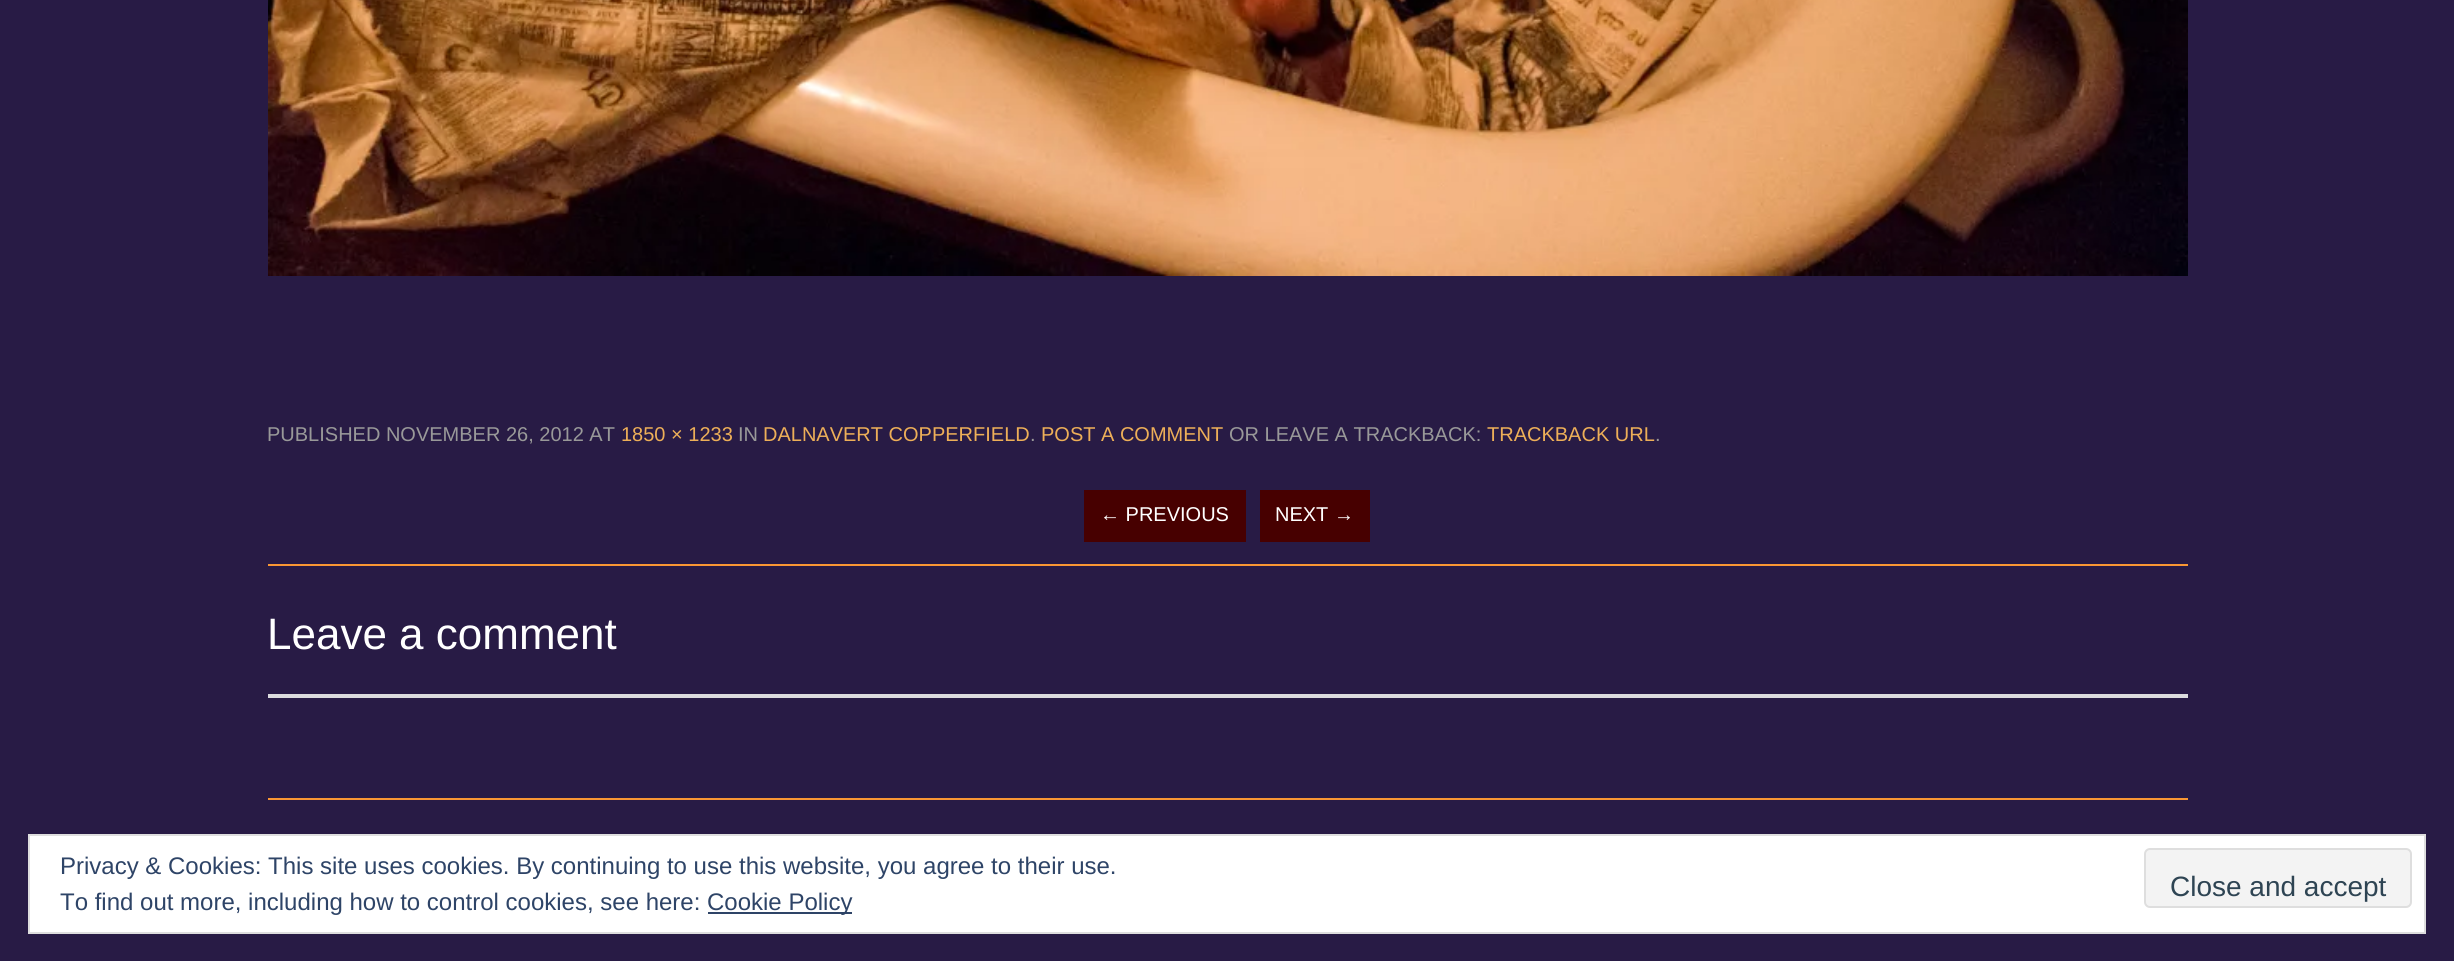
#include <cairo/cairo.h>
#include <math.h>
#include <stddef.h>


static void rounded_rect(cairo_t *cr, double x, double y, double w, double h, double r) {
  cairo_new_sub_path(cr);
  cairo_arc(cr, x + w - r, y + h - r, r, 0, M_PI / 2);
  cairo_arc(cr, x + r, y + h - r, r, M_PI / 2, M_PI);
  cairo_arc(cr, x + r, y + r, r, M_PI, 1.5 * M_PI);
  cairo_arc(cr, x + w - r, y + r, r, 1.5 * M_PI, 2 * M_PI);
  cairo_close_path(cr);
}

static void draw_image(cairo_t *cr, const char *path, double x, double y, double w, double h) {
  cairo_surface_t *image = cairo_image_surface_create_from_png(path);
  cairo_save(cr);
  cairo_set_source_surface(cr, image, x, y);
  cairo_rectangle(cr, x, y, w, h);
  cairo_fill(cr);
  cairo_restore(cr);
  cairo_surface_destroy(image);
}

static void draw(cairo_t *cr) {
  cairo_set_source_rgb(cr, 40 / 255.0, 27 / 255.0, 69 / 255.0);
  cairo_paint(cr);
  draw_image(cr, "images/1.png", 268, 0, 1920, 276);
  cairo_set_source_rgb(cr, 71 / 255.0, 0, 0);
  cairo_rectangle(cr, 1084, 490, 162, 52);
  cairo_fill(cr);
  cairo_rectangle(cr, 1260, 490, 110, 52);
  cairo_fill(cr);
  cairo_set_source_rgb(cr, 249 / 255.0, 151 / 255.0, 52 / 255.0);
  cairo_rectangle(cr, 268, 564, 1920, 2);
  cairo_fill(cr);
  cairo_set_source_rgb(cr, 220 / 255.0, 220 / 255.0, 222 / 255.0);
  cairo_rectangle(cr, 268, 694, 1920, 4);
  cairo_fill(cr);
  cairo_set_source_rgb(cr, 249 / 255.0, 151 / 255.0, 52 / 255.0);
  cairo_rectangle(cr, 268, 798, 1920, 2);
  cairo_fill(cr);
  cairo_set_source_rgb(cr, 1, 1, 1);
  cairo_rectangle(cr, 29, 835, 2396, 98);
  cairo_fill_preserve(cr);
  cairo_set_source_rgb(cr, 222 / 255.0, 222 / 255.0, 222 / 255.0);
  cairo_stroke(cr);
  cairo_set_source_rgb(cr, 46 / 255.0, 68 / 255.0, 103 / 255.0);
  cairo_rectangle(cr, 708, 912, 144, 2);
  cairo_fill(cr);
  cairo_set_source_rgb(cr, 243 / 255.0, 243 / 255.0, 243 / 255.0);
  rounded_rect(cr, 2145, 849, 266, 58, 5);
  cairo_fill_preserve(cr);
  cairo_set_source_rgb(cr, 222 / 255.0, 222 / 255.0, 222 / 255.0);
  cairo_stroke(cr);
  cairo_select_font_face(cr, "Liberation Sans", CAIRO_FONT_SLANT_NORMAL, CAIRO_FONT_WEIGHT_NORMAL);
  cairo_set_font_size(cr, 20);
  cairo_set_source_rgb(cr, 153 / 255.0, 153 / 255.0, 153 / 255.0);
  cairo_move_to(cr, 267, 441);
  cairo_show_text(cr, "PUBLISHED NOVEMBER 26, 2012 AT");
  cairo_set_source_rgb(cr, 237 / 255.0, 175 / 255.0, 88 / 255.0);
  cairo_move_to(cr, 621, 441);
  cairo_show_text(cr, "1850 × 1233");
  cairo_set_source_rgb(cr, 153 / 255.0, 153 / 255.0, 153 / 255.0);
  cairo_move_to(cr, 738, 441);
  cairo_show_text(cr, "IN");
  cairo_set_source_rgb(cr, 237 / 255.0, 175 / 255.0, 88 / 255.0);
  cairo_move_to(cr, 763, 441);
  cairo_show_text(cr, "DALNAVERT COPPERFIELD");
  cairo_set_source_rgb(cr, 153 / 255.0, 153 / 255.0, 153 / 255.0);
  cairo_move_to(cr, 1030, 441);
  cairo_show_text(cr, ".");
  cairo_set_source_rgb(cr, 237 / 255.0, 175 / 255.0, 88 / 255.0);
  cairo_move_to(cr, 1041, 441);
  cairo_show_text(cr, "POST A COMMENT");
  cairo_set_source_rgb(cr, 153 / 255.0, 153 / 255.0, 153 / 255.0);
  cairo_move_to(cr, 1229, 441);
  cairo_show_text(cr, "OR LEAVE A TRACKBACK:");
  cairo_set_source_rgb(cr, 237 / 255.0, 175 / 255.0, 88 / 255.0);
  cairo_move_to(cr, 1487, 441);
  cairo_show_text(cr, "TRACKBACK URL");
  cairo_set_source_rgb(cr, 153 / 255.0, 153 / 255.0, 153 / 255.0);
  cairo_move_to(cr, 1655, 441);
  cairo_show_text(cr, ".");
  cairo_set_source_rgb(cr, 1, 1, 1);
  cairo_move_to(cr, 1100, 521);
  cairo_show_text(cr, "← PREVIOUS");
  cairo_move_to(cr, 1275, 521);
  cairo_show_text(cr, "NEXT →");
  cairo_set_font_size(cr, 44);
  cairo_move_to(cr, 267, 649);
  cairo_show_text(cr, "Leave a comment");
  cairo_set_font_size(cr, 24);
  cairo_set_source_rgb(cr, 46 / 255.0, 68 / 255.0, 103 / 255.0);
  cairo_move_to(cr, 60, 874);
  cairo_show_text(cr, "Privacy & Cookies: This site uses cookies. By continuing to use this website, you agree to their use.");
  cairo_move_to(cr, 60, 910);
  cairo_show_text(cr, "To find out more, including how to control cookies, see here:");
  cairo_move_to(cr, 707, 910);
  cairo_show_text(cr, "Cookie Policy");
  cairo_set_font_size(cr, 28);
  cairo_set_source_rgb(cr, 46 / 255.0, 68 / 255.0, 83 / 255.0);
  cairo_move_to(cr, 2170, 896);
  cairo_show_text(cr, "Close and accept");
}

int main(void) {
  cairo_surface_t *surface = cairo_image_surface_create(CAIRO_FORMAT_RGB24, 2454, 961);
  cairo_t *cr = cairo_create(surface);
  cairo_font_options_t *options = cairo_font_options_create();
  cairo_font_options_set_hint_metrics(options, CAIRO_HINT_METRICS_OFF);
  cairo_font_options_set_hint_style(options, CAIRO_HINT_STYLE_NONE);
  cairo_set_font_options(cr, options);
  cairo_set_miter_limit(cr, 4);
  draw(cr);
  cairo_surface_write_to_png(surface, "out.png");
  cairo_font_options_destroy(options);
  cairo_destroy(cr);
  cairo_surface_destroy(surface);
  return 0;
}
